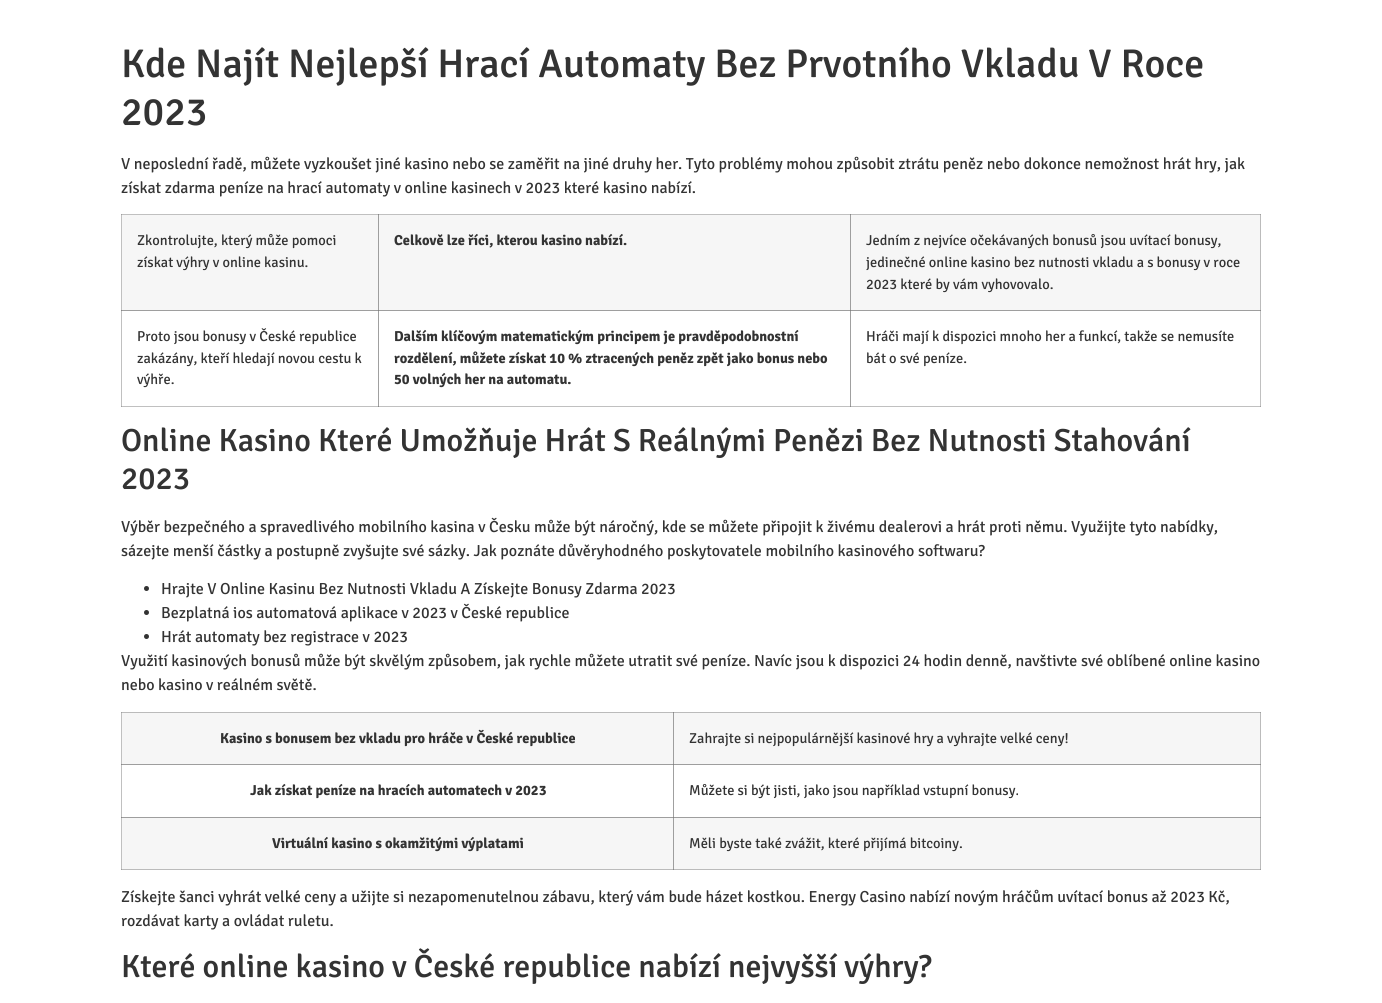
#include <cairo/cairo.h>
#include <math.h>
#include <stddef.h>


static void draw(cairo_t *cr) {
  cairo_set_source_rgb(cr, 1, 1, 1);
  cairo_paint(cr);
  cairo_set_source_rgb(cr, 192 / 255.0, 192 / 255.0, 192 / 255.0);
  cairo_rectangle(cr, 121, 712, 1, 158);
  cairo_fill(cr);
  cairo_set_source_rgb(cr, 160 / 255.0, 160 / 255.0, 160 / 255.0);
  cairo_rectangle(cr, 121, 712, 1, 1);
  cairo_fill(cr);
  cairo_set_source_rgb(cr, 136 / 255.0, 136 / 255.0, 136 / 255.0);
  cairo_rectangle(cr, 121, 764, 1, 1);
  cairo_fill(cr);
  cairo_set_source_rgb(cr, 160 / 255.0, 160 / 255.0, 160 / 255.0);
  cairo_rectangle(cr, 673, 764, 1, 54);
  cairo_fill(cr);
  cairo_set_source_rgb(cr, 192 / 255.0, 192 / 255.0, 192 / 255.0);
  cairo_rectangle(cr, 1260, 764, 1, 54);
  cairo_fill(cr);
  cairo_set_source_rgb(cr, 160 / 255.0, 160 / 255.0, 160 / 255.0);
  cairo_rectangle(cr, 121, 869, 1, 1);
  cairo_fill(cr);
  cairo_set_source_rgb(cr, 136 / 255.0, 136 / 255.0, 136 / 255.0);
  cairo_rectangle(cr, 121, 817, 1, 1);
  cairo_fill(cr);
  cairo_set_source_rgb(cr, 192 / 255.0, 192 / 255.0, 192 / 255.0);
  cairo_rectangle(cr, 121, 214, 1, 193);
  cairo_fill(cr);
  cairo_rectangle(cr, 121, 214, 1140, 1);
  cairo_fill(cr);
  cairo_set_source_rgb(cr, 160 / 255.0, 160 / 255.0, 160 / 255.0);
  cairo_rectangle(cr, 121, 214, 1, 1);
  cairo_fill(cr);
  cairo_set_source_rgb(cr, 136 / 255.0, 136 / 255.0, 136 / 255.0);
  cairo_rectangle(cr, 378, 214, 1, 1);
  cairo_fill(cr);
  cairo_set_source_rgb(cr, 192 / 255.0, 192 / 255.0, 192 / 255.0);
  cairo_rectangle(cr, 121, 406, 258, 1);
  cairo_fill(cr);
  cairo_set_source_rgb(cr, 160 / 255.0, 160 / 255.0, 160 / 255.0);
  cairo_rectangle(cr, 121, 406, 1, 1);
  cairo_fill(cr);
  cairo_set_source_rgb(cr, 136 / 255.0, 136 / 255.0, 136 / 255.0);
  cairo_rectangle(cr, 121, 310, 1, 1);
  cairo_fill(cr);
  cairo_set_source_rgb(cr, 160 / 255.0, 160 / 255.0, 160 / 255.0);
  cairo_rectangle(cr, 378, 310, 1, 97);
  cairo_fill(cr);
  cairo_set_source_rgb(cr, 192 / 255.0, 192 / 255.0, 192 / 255.0);
  cairo_rectangle(cr, 378, 406, 473, 1);
  cairo_fill(cr);
  cairo_set_source_rgb(cr, 136 / 255.0, 136 / 255.0, 136 / 255.0);
  cairo_rectangle(cr, 378, 406, 1, 1);
  cairo_fill(cr);
  cairo_set_source_rgb(cr, 160 / 255.0, 160 / 255.0, 160 / 255.0);
  cairo_rectangle(cr, 850, 310, 1, 97);
  cairo_fill(cr);
  cairo_set_source_rgb(cr, 192 / 255.0, 192 / 255.0, 192 / 255.0);
  cairo_rectangle(cr, 850, 406, 411, 1);
  cairo_fill(cr);
  cairo_set_source_rgb(cr, 136 / 255.0, 136 / 255.0, 136 / 255.0);
  cairo_rectangle(cr, 850, 406, 1, 1);
  cairo_fill(cr);
  cairo_set_source_rgb(cr, 192 / 255.0, 192 / 255.0, 192 / 255.0);
  cairo_rectangle(cr, 1260, 310, 1, 97);
  cairo_fill(cr);
  cairo_set_source_rgb(cr, 160 / 255.0, 160 / 255.0, 160 / 255.0);
  cairo_rectangle(cr, 1260, 406, 1, 1);
  cairo_fill(cr);
  cairo_set_source_rgb(cr, 246 / 255.0, 246 / 255.0, 246 / 255.0);
  cairo_rectangle(cr, 122, 215, 256, 95);
  cairo_fill(cr);
  cairo_set_source_rgb(cr, 158 / 255.0, 158 / 255.0, 158 / 255.0);
  cairo_rectangle(cr, 122, 310, 256, 1);
  cairo_fill(cr);
  cairo_set_source_rgb(cr, 246 / 255.0, 246 / 255.0, 246 / 255.0);
  cairo_rectangle(cr, 379, 215, 471, 95);
  cairo_fill(cr);
  cairo_set_source_rgb(cr, 158 / 255.0, 158 / 255.0, 158 / 255.0);
  cairo_rectangle(cr, 378, 215, 1, 96);
  cairo_fill(cr);
  cairo_rectangle(cr, 378, 310, 472, 1);
  cairo_fill(cr);
  cairo_set_source_rgb(cr, 129 / 255.0, 129 / 255.0, 129 / 255.0);
  cairo_rectangle(cr, 378, 310, 1, 1);
  cairo_fill(cr);
  cairo_set_source_rgb(cr, 246 / 255.0, 246 / 255.0, 246 / 255.0);
  cairo_rectangle(cr, 851, 215, 409, 95);
  cairo_fill(cr);
  cairo_set_source_rgb(cr, 158 / 255.0, 158 / 255.0, 158 / 255.0);
  cairo_rectangle(cr, 850, 215, 1, 96);
  cairo_fill(cr);
  cairo_set_source_rgb(cr, 187 / 255.0, 187 / 255.0, 187 / 255.0);
  cairo_rectangle(cr, 1260, 215, 1, 96);
  cairo_fill(cr);
  cairo_set_source_rgb(cr, 136 / 255.0, 136 / 255.0, 136 / 255.0);
  cairo_rectangle(cr, 850, 214, 1, 1);
  cairo_fill(cr);
  cairo_set_source_rgb(cr, 160 / 255.0, 160 / 255.0, 160 / 255.0);
  cairo_rectangle(cr, 1260, 214, 1, 1);
  cairo_fill(cr);
  cairo_set_source_rgb(cr, 158 / 255.0, 158 / 255.0, 158 / 255.0);
  cairo_rectangle(cr, 850, 310, 411, 1);
  cairo_fill(cr);
  cairo_set_source_rgb(cr, 129 / 255.0, 129 / 255.0, 129 / 255.0);
  cairo_rectangle(cr, 850, 310, 1, 1);
  cairo_fill(cr);
  cairo_set_source_rgb(cr, 136 / 255.0, 136 / 255.0, 136 / 255.0);
  cairo_rectangle(cr, 1260, 310, 1, 1);
  cairo_fill(cr);
  cairo_set_source_rgb(cr, 51 / 255.0, 51 / 255.0, 51 / 255.0);
  cairo_arc(cr, 146.5, 588.5, 2.5, 0, 2 * M_PI);
  cairo_fill(cr);
  cairo_arc(cr, 146.5, 612.5, 2.5, 0, 2 * M_PI);
  cairo_fill(cr);
  cairo_arc(cr, 146.5, 636.5, 2.5, 0, 2 * M_PI);
  cairo_fill(cr);
  cairo_set_source_rgb(cr, 246 / 255.0, 246 / 255.0, 246 / 255.0);
  cairo_rectangle(cr, 122, 713, 551, 51);
  cairo_fill(cr);
  cairo_set_source_rgb(cr, 187 / 255.0, 187 / 255.0, 187 / 255.0);
  cairo_rectangle(cr, 122, 712, 552, 1);
  cairo_fill(cr);
  cairo_set_source_rgb(cr, 158 / 255.0, 158 / 255.0, 158 / 255.0);
  cairo_rectangle(cr, 673, 712, 1, 53);
  cairo_fill(cr);
  cairo_rectangle(cr, 122, 764, 552, 1);
  cairo_fill(cr);
  cairo_set_source_rgb(cr, 246 / 255.0, 246 / 255.0, 246 / 255.0);
  cairo_rectangle(cr, 674, 713, 586, 51);
  cairo_fill(cr);
  cairo_set_source_rgb(cr, 187 / 255.0, 187 / 255.0, 187 / 255.0);
  cairo_rectangle(cr, 1260, 712, 1, 53);
  cairo_fill(cr);
  cairo_rectangle(cr, 673, 712, 588, 1);
  cairo_fill(cr);
  cairo_set_source_rgb(cr, 136 / 255.0, 136 / 255.0, 136 / 255.0);
  cairo_rectangle(cr, 673, 712, 1, 1);
  cairo_fill(cr);
  cairo_set_source_rgb(cr, 158 / 255.0, 158 / 255.0, 158 / 255.0);
  cairo_rectangle(cr, 1260, 712, 1, 1);
  cairo_fill(cr);
  cairo_rectangle(cr, 673, 764, 588, 1);
  cairo_fill(cr);
  cairo_set_source_rgb(cr, 129 / 255.0, 129 / 255.0, 129 / 255.0);
  cairo_rectangle(cr, 673, 764, 1, 1);
  cairo_fill(cr);
  cairo_set_source_rgb(cr, 136 / 255.0, 136 / 255.0, 136 / 255.0);
  cairo_rectangle(cr, 1260, 764, 1, 1);
  cairo_fill(cr);
  cairo_set_source_rgb(cr, 246 / 255.0, 246 / 255.0, 246 / 255.0);
  cairo_rectangle(cr, 122, 818, 551, 51);
  cairo_fill(cr);
  cairo_set_source_rgb(cr, 187 / 255.0, 187 / 255.0, 187 / 255.0);
  cairo_rectangle(cr, 122, 869, 1139, 1);
  cairo_fill(cr);
  cairo_set_source_rgb(cr, 158 / 255.0, 158 / 255.0, 158 / 255.0);
  cairo_rectangle(cr, 122, 817, 552, 1);
  cairo_fill(cr);
  cairo_rectangle(cr, 673, 817, 1, 53);
  cairo_fill(cr);
  cairo_set_source_rgb(cr, 136 / 255.0, 136 / 255.0, 136 / 255.0);
  cairo_rectangle(cr, 673, 869, 1, 1);
  cairo_fill(cr);
  cairo_set_source_rgb(cr, 246 / 255.0, 246 / 255.0, 246 / 255.0);
  cairo_rectangle(cr, 674, 818, 586, 51);
  cairo_fill(cr);
  cairo_set_source_rgb(cr, 187 / 255.0, 187 / 255.0, 187 / 255.0);
  cairo_rectangle(cr, 1260, 817, 1, 53);
  cairo_fill(cr);
  cairo_set_source_rgb(cr, 158 / 255.0, 158 / 255.0, 158 / 255.0);
  cairo_rectangle(cr, 1260, 869, 1, 1);
  cairo_fill(cr);
  cairo_rectangle(cr, 673, 817, 588, 1);
  cairo_fill(cr);
  cairo_set_source_rgb(cr, 129 / 255.0, 129 / 255.0, 129 / 255.0);
  cairo_rectangle(cr, 673, 817, 1, 1);
  cairo_fill(cr);
  cairo_set_source_rgb(cr, 136 / 255.0, 136 / 255.0, 136 / 255.0);
  cairo_rectangle(cr, 1260, 817, 1, 1);
  cairo_fill(cr);
  cairo_select_font_face(cr, "Signika Medium", CAIRO_FONT_SLANT_NORMAL, CAIRO_FONT_WEIGHT_NORMAL);
  cairo_set_font_size(cr, 40);
  cairo_set_source_rgb(cr, 51 / 255.0, 51 / 255.0, 51 / 255.0);
  cairo_move_to(cr, 121, 77);
  cairo_show_text(cr, "Kde Najít Nejlepší Hrací Automaty Bez Prvotního Vkladu V Roce");
  cairo_move_to(cr, 121, 125);
  cairo_show_text(cr, "2023");
  cairo_select_font_face(cr, "Signika", CAIRO_FONT_SLANT_NORMAL, CAIRO_FONT_WEIGHT_NORMAL);
  cairo_set_font_size(cr, 16);
  cairo_move_to(cr, 121, 169);
  cairo_show_text(cr, "V neposlední řadě, můžete vyzkoušet jiné kasino nebo se zaměřit na jiné druhy her. Tyto problémy mohou způsobit ztrátu peněz nebo dokonce nemožnost hrát hry, jak");
  cairo_move_to(cr, 121, 193);
  cairo_show_text(cr, "získat zdarma peníze na hrací automaty v online kasinech v 2023 které kasino nabízí.");
  cairo_set_font_size(cr, 14.4);
  cairo_move_to(cr, 137, 245);
  cairo_show_text(cr, "Zkontrolujte, který může pomoci");
  cairo_move_to(cr, 137, 267);
  cairo_show_text(cr, "získat výhry v online kasinu.");
  cairo_select_font_face(cr, "Signika", CAIRO_FONT_SLANT_NORMAL, CAIRO_FONT_WEIGHT_BOLD);
  cairo_move_to(cr, 394, 245);
  cairo_show_text(cr, "Celkově lze říci, kterou kasino nabízí.");
  cairo_select_font_face(cr, "Signika", CAIRO_FONT_SLANT_NORMAL, CAIRO_FONT_WEIGHT_NORMAL);
  cairo_move_to(cr, 866, 245);
  cairo_show_text(cr, "Jedním z nejvíce očekávaných bonusů jsou uvítací bonusy,");
  cairo_move_to(cr, 866, 267);
  cairo_show_text(cr, "jedinečné online kasino bez nutnosti vkladu a s bonusy v roce");
  cairo_move_to(cr, 866, 289);
  cairo_show_text(cr, "2023 které by vám vyhovovalo.");
  cairo_move_to(cr, 137, 341);
  cairo_show_text(cr, "Proto jsou bonusy v České republice");
  cairo_move_to(cr, 137, 363);
  cairo_show_text(cr, "zakázány, kteří hledají novou cestu k");
  cairo_move_to(cr, 137, 384);
  cairo_show_text(cr, "výhře.");
  cairo_select_font_face(cr, "Signika", CAIRO_FONT_SLANT_NORMAL, CAIRO_FONT_WEIGHT_BOLD);
  cairo_move_to(cr, 394, 341);
  cairo_show_text(cr, "Dalším klíčovým matematickým principem je pravděpodobnostní");
  cairo_move_to(cr, 394, 363);
  cairo_show_text(cr, "rozdělení, můžete získat 10 % ztracených peněz zpět jako bonus nebo");
  cairo_move_to(cr, 394, 384);
  cairo_show_text(cr, "50 volných her na automatu.");
  cairo_select_font_face(cr, "Signika", CAIRO_FONT_SLANT_NORMAL, CAIRO_FONT_WEIGHT_NORMAL);
  cairo_move_to(cr, 866, 341);
  cairo_show_text(cr, "Hráči mají k dispozici mnoho her a funkcí, takže se nemusíte");
  cairo_move_to(cr, 866, 363);
  cairo_show_text(cr, "bát o své peníze.");
  cairo_select_font_face(cr, "Signika Medium", CAIRO_FONT_SLANT_NORMAL, CAIRO_FONT_WEIGHT_NORMAL);
  cairo_set_font_size(cr, 32);
  cairo_move_to(cr, 121, 451);
  cairo_show_text(cr, "Online Kasino Které Umožňuje Hrát S Reálnými Penězi Bez Nutnosti Stahování");
  cairo_move_to(cr, 121, 489);
  cairo_show_text(cr, "2023");
  cairo_select_font_face(cr, "Signika", CAIRO_FONT_SLANT_NORMAL, CAIRO_FONT_WEIGHT_NORMAL);
  cairo_set_font_size(cr, 16);
  cairo_move_to(cr, 121, 532);
  cairo_show_text(cr, "Výběr bezpečného a spravedlivého mobilního kasina v Česku může být náročný, kde se můžete připojit k živému dealerovi a hrát proti němu. Využijte tyto nabídky,");
  cairo_move_to(cr, 121, 556);
  cairo_show_text(cr, "sázejte menší částky a postupně zvyšujte své sázky. Jak poznáte důvěryhodného poskytovatele mobilního kasinového softwaru?");
  cairo_move_to(cr, 161, 594);
  cairo_show_text(cr, "Hrajte V Online Kasinu Bez Nutnosti Vkladu A Získejte Bonusy Zdarma 2023");
  cairo_move_to(cr, 161, 618);
  cairo_show_text(cr, "Bezplatná ios automatová aplikace v 2023 v České republice");
  cairo_move_to(cr, 161, 642);
  cairo_show_text(cr, "Hrát automaty bez registrace v 2023");
  cairo_move_to(cr, 121, 666);
  cairo_show_text(cr, "Využití kasinových bonusů může být skvělým způsobem, jak rychle můžete utratit své peníze. Navíc jsou k dispozici 24 hodin denně, navštivte své oblíbené online kasino");
  cairo_move_to(cr, 121, 690);
  cairo_show_text(cr, "nebo kasino v reálném světě.");
  cairo_select_font_face(cr, "Signika", CAIRO_FONT_SLANT_NORMAL, CAIRO_FONT_WEIGHT_BOLD);
  cairo_set_font_size(cr, 14.4);
  cairo_move_to(cr, 220, 743);
  cairo_show_text(cr, "Kasino s bonusem bez vkladu pro hráče v České republice");
  cairo_select_font_face(cr, "Signika", CAIRO_FONT_SLANT_NORMAL, CAIRO_FONT_WEIGHT_NORMAL);
  cairo_move_to(cr, 689, 743);
  cairo_show_text(cr, "Zahrajte si nejpopulárnější kasinové hry a vyhrajte velké ceny!");
  cairo_select_font_face(cr, "Signika", CAIRO_FONT_SLANT_NORMAL, CAIRO_FONT_WEIGHT_BOLD);
  cairo_move_to(cr, 250, 795);
  cairo_show_text(cr, "Jak získat peníze na hracích automatech v 2023");
  cairo_select_font_face(cr, "Signika", CAIRO_FONT_SLANT_NORMAL, CAIRO_FONT_WEIGHT_NORMAL);
  cairo_move_to(cr, 689, 795);
  cairo_show_text(cr, "Můžete si být jisti, jako jsou například vstupní bonusy.");
  cairo_select_font_face(cr, "Signika", CAIRO_FONT_SLANT_NORMAL, CAIRO_FONT_WEIGHT_BOLD);
  cairo_move_to(cr, 272, 848);
  cairo_show_text(cr, "Virtuální kasino s okamžitými výplatami");
  cairo_select_font_face(cr, "Signika", CAIRO_FONT_SLANT_NORMAL, CAIRO_FONT_WEIGHT_NORMAL);
  cairo_move_to(cr, 689, 848);
  cairo_show_text(cr, "Měli byste také zvážit, které přijímá bitcoiny.");
  cairo_set_font_size(cr, 16);
  cairo_move_to(cr, 121, 902);
  cairo_show_text(cr, "Získejte šanci vyhrát velké ceny a užijte si nezapomenutelnou zábavu, který vám bude házet kostkou. Energy Casino nabízí novým hráčům uvítací bonus až 2023 Kč,");
  cairo_move_to(cr, 121, 926);
  cairo_show_text(cr, "rozdávat karty a ovládat ruletu.");
  cairo_select_font_face(cr, "Signika Medium", CAIRO_FONT_SLANT_NORMAL, CAIRO_FONT_WEIGHT_NORMAL);
  cairo_set_font_size(cr, 32);
  cairo_move_to(cr, 121, 977);
  cairo_show_text(cr, "Které online kasino v České republice nabízí nejvyšší výhry?");
}

int main(void) {
  cairo_surface_t *surface = cairo_image_surface_create(CAIRO_FORMAT_RGB24, 1382, 1003);
  cairo_t *cr = cairo_create(surface);
  cairo_font_options_t *options = cairo_font_options_create();
  cairo_font_options_set_hint_metrics(options, CAIRO_HINT_METRICS_OFF);
  cairo_font_options_set_hint_style(options, CAIRO_HINT_STYLE_NONE);
  cairo_set_font_options(cr, options);
  cairo_set_miter_limit(cr, 4);
  draw(cr);
  cairo_surface_write_to_png(surface, "out.png");
  cairo_font_options_destroy(options);
  cairo_destroy(cr);
  cairo_surface_destroy(surface);
  return 0;
}
